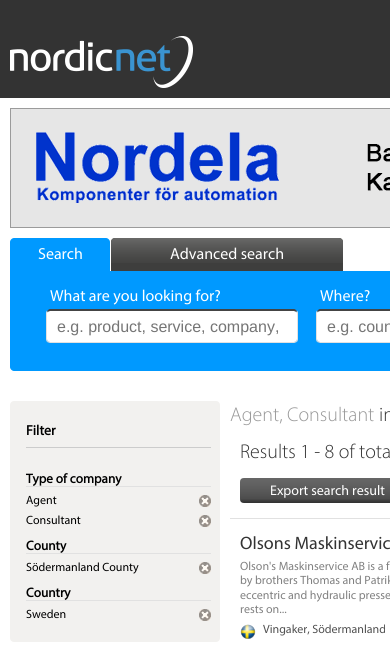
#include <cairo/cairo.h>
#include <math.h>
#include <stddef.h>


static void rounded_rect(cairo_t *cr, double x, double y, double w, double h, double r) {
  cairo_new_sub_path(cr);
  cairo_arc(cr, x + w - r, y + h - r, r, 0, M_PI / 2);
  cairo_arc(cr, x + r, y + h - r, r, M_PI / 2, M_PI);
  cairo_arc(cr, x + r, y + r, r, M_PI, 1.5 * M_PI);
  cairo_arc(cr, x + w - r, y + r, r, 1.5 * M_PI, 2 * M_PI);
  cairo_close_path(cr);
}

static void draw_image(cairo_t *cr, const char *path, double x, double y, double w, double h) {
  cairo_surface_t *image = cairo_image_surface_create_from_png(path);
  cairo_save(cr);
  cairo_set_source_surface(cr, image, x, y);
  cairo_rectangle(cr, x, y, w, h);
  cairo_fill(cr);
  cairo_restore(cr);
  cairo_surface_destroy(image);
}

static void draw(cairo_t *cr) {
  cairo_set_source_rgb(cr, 51 / 255.0, 51 / 255.0, 51 / 255.0);
  cairo_paint(cr);
  draw_image(cr, "images/1.png", 10, 36, 183, 52);
  cairo_set_source_rgb(cr, 1, 1, 1);
  cairo_rectangle(cr, 0, 98, 390, 553);
  cairo_fill(cr);
  draw_image(cr, "images/2.png", 10, 108, 380, 120);
  cairo_set_source_rgb(cr, 0, 153 / 255.0, 1);
  cairo_new_path(cr);
  cairo_move_to(cr, 14, 238);
  cairo_line_to(cr, 106, 238);
  cairo_curve_to(cr, 108, 238, 110, 240, 110, 242);
  cairo_line_to(cr, 110, 271);
  cairo_line_to(cr, 10, 271);
  cairo_line_to(cr, 10, 242);
  cairo_curve_to(cr, 10, 240, 12, 238, 14, 238);
  cairo_close_path(cr);
  cairo_fill(cr);
  cairo_set_source_rgb(cr, 62 / 255.0, 62 / 255.0, 61 / 255.0);
  cairo_new_path(cr);
  cairo_move_to(cr, 115, 238);
  cairo_line_to(cr, 339, 238);
  cairo_curve_to(cr, 341, 238, 343, 240, 343, 242);
  cairo_line_to(cr, 343, 271);
  cairo_line_to(cr, 111, 271);
  cairo_line_to(cr, 111, 242);
  cairo_curve_to(cr, 111, 240, 113, 238, 115, 238);
  cairo_close_path(cr);
  cairo_fill(cr);
  draw_image(cr, "images/3.png", 111, 238, 232, 25);
  cairo_set_source_rgb(cr, 0, 153 / 255.0, 1);
  cairo_new_path(cr);
  cairo_move_to(cr, 10, 271);
  cairo_line_to(cr, 390, 271);
  cairo_curve_to(cr, 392, 271, 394, 273, 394, 275);
  cairo_line_to(cr, 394, 367);
  cairo_curve_to(cr, 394, 369, 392, 371, 390, 371);
  cairo_line_to(cr, 14, 371);
  cairo_curve_to(cr, 12, 371, 10, 369, 10, 367);
  cairo_close_path(cr);
  cairo_fill(cr);
  cairo_set_source_rgb(cr, 1, 1, 1);
  cairo_new_path(cr);
  cairo_move_to(cr, 50, 311);
  cairo_line_to(cr, 294, 311);
  cairo_curve_to(cr, 296, 311, 297, 312, 297, 313);
  cairo_line_to(cr, 297, 339);
  cairo_curve_to(cr, 297, 341, 296, 342, 294, 342);
  cairo_line_to(cr, 50, 342);
  cairo_curve_to(cr, 48, 342, 47, 341, 47, 339);
  cairo_line_to(cr, 47, 313);
  cairo_curve_to(cr, 47, 312, 48, 311, 50, 311);
  cairo_close_path(cr);
  cairo_fill(cr);
  cairo_set_source_rgb(cr, 68 / 255.0, 68 / 255.0, 68 / 255.0);
  cairo_new_path(cr);
  cairo_move_to(cr, 50, 309);
  cairo_curve_to(cr, 49, 309, 48, 310, 47, 311);
  cairo_line_to(cr, 47, 312);
  cairo_line_to(cr, 50, 311);
  cairo_line_to(cr, 294, 311);
  cairo_line_to(cr, 297, 312);
  cairo_line_to(cr, 297, 311);
  cairo_curve_to(cr, 296, 310, 295, 309, 294, 309);
  cairo_close_path(cr);
  cairo_fill(cr);
  cairo_set_source_rgb(cr, 225 / 255.0, 225 / 255.0, 225 / 255.0);
  cairo_new_path(cr);
  cairo_move_to(cr, 298, 339);
  cairo_line_to(cr, 298, 313);
  cairo_curve_to(cr, 298, 312, 297.5, 311.5, 297, 310.5);
  cairo_line_to(cr, 296.5, 312);
  cairo_line_to(cr, 297, 313);
  cairo_line_to(cr, 297, 339.5);
  cairo_line_to(cr, 296, 341);
  cairo_line_to(cr, 297, 342);
  cairo_curve_to(cr, 297.5, 341, 298, 340, 298, 339);
  cairo_close_path(cr);
  cairo_fill(cr);
  cairo_new_path(cr);
  cairo_move_to(cr, 50, 343);
  cairo_line_to(cr, 294, 343);
  cairo_curve_to(cr, 295, 343, 296, 342, 297, 342);
  cairo_line_to(cr, 296, 341);
  cairo_line_to(cr, 294, 342);
  cairo_line_to(cr, 50, 342);
  cairo_line_to(cr, 48, 341);
  cairo_line_to(cr, 47, 342);
  cairo_close_path(cr);
  cairo_fill(cr);
  cairo_new_path(cr);
  cairo_move_to(cr, 46, 313);
  cairo_line_to(cr, 46, 339);
  cairo_curve_to(cr, 46, 340, 46.5, 341, 47, 342);
  cairo_line_to(cr, 48, 341);
  cairo_line_to(cr, 47, 339.5);
  cairo_line_to(cr, 47, 313);
  cairo_line_to(cr, 47.5, 312);
  cairo_line_to(cr, 47, 310.5);
  cairo_curve_to(cr, 46.5, 311.5, 46, 312, 46, 313);
  cairo_close_path(cr);
  cairo_fill(cr);
  cairo_set_source_rgb(cr, 1, 1, 1);
  cairo_new_path(cr);
  cairo_move_to(cr, 320, 311);
  cairo_line_to(cr, 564, 311);
  cairo_curve_to(cr, 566, 311, 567, 312, 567, 313);
  cairo_line_to(cr, 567, 339);
  cairo_curve_to(cr, 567, 341, 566, 342, 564, 342);
  cairo_line_to(cr, 320, 342);
  cairo_curve_to(cr, 318, 342, 317, 341, 317, 339);
  cairo_line_to(cr, 317, 313);
  cairo_curve_to(cr, 317, 312, 318, 311, 320, 311);
  cairo_close_path(cr);
  cairo_fill(cr);
  cairo_set_source_rgb(cr, 68 / 255.0, 68 / 255.0, 68 / 255.0);
  cairo_new_path(cr);
  cairo_move_to(cr, 320, 309);
  cairo_curve_to(cr, 319, 309, 318, 310, 317, 311);
  cairo_line_to(cr, 317, 312);
  cairo_line_to(cr, 320, 311);
  cairo_line_to(cr, 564, 311);
  cairo_line_to(cr, 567, 312);
  cairo_line_to(cr, 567, 311);
  cairo_curve_to(cr, 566, 310, 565, 309, 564, 309);
  cairo_close_path(cr);
  cairo_fill(cr);
  cairo_set_source_rgb(cr, 225 / 255.0, 225 / 255.0, 225 / 255.0);
  cairo_new_path(cr);
  cairo_move_to(cr, 320, 343);
  cairo_line_to(cr, 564, 343);
  cairo_curve_to(cr, 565, 343, 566, 342, 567, 342);
  cairo_line_to(cr, 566, 341);
  cairo_line_to(cr, 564, 342);
  cairo_line_to(cr, 320, 342);
  cairo_line_to(cr, 318, 341);
  cairo_line_to(cr, 317, 342);
  cairo_close_path(cr);
  cairo_fill(cr);
  cairo_new_path(cr);
  cairo_move_to(cr, 316, 313);
  cairo_line_to(cr, 316, 339);
  cairo_curve_to(cr, 316, 340, 316.5, 341, 317, 342);
  cairo_line_to(cr, 318, 341);
  cairo_line_to(cr, 317, 339.5);
  cairo_line_to(cr, 317, 313);
  cairo_line_to(cr, 317.5, 312);
  cairo_line_to(cr, 317, 310.5);
  cairo_curve_to(cr, 316.5, 311.5, 316, 312, 316, 313);
  cairo_close_path(cr);
  cairo_fill(cr);
  cairo_set_source_rgb(cr, 242 / 255.0, 241 / 255.0, 239 / 255.0);
  rounded_rect(cr, 10, 401, 210, 241, 4);
  cairo_fill(cr);
  cairo_set_source_rgb(cr, 204 / 255.0, 204 / 255.0, 204 / 255.0);
  cairo_rectangle(cr, 26, 447, 185, 1);
  cairo_fill(cr);
  cairo_set_source_rgb(cr, 225 / 255.0, 225 / 255.0, 225 / 255.0);
  cairo_rectangle(cr, 26, 486, 185, 1);
  cairo_fill(cr);
  draw_image(cr, "images/4.png", 199, 495, 12, 12);
  draw_image(cr, "images/4.png", 199, 515, 12, 12);
  cairo_rectangle(cr, 26, 553, 185, 1);
  cairo_fill(cr);
  draw_image(cr, "images/4.png", 199, 562, 12, 12);
  cairo_rectangle(cr, 26, 600, 185, 1);
  cairo_fill(cr);
  draw_image(cr, "images/4.png", 199, 609, 12, 12);
  draw_image(cr, "images/5.png", 240, 478, 150, 25);
  cairo_rectangle(cr, 230, 518, 160, 1);
  cairo_fill(cr);
  draw_image(cr, "images/6.png", 240, 624, 16, 15);
  cairo_select_font_face(cr, "Myriad", CAIRO_FONT_SLANT_NORMAL, CAIRO_FONT_WEIGHT_NORMAL);
  cairo_set_font_size(cr, 16);
  cairo_set_source_rgb(cr, 1, 1, 1);
  cairo_move_to(cr, 38, 259);
  cairo_show_text(cr, "Search");
  cairo_move_to(cr, 170, 259);
  cairo_show_text(cr, "Advanced search");
  cairo_move_to(cr, 50, 301);
  cairo_show_text(cr, "What are you looking for?");
  cairo_select_font_face(cr, "Liberation Sans", CAIRO_FONT_SLANT_NORMAL, CAIRO_FONT_WEIGHT_NORMAL);
  cairo_set_source_rgb(cr, 117 / 255.0, 117 / 255.0, 117 / 255.0);
  cairo_move_to(cr, 57, 332);
  cairo_show_text(cr, "e.g. product, service, company,");
  cairo_select_font_face(cr, "Myriad", CAIRO_FONT_SLANT_NORMAL, CAIRO_FONT_WEIGHT_NORMAL);
  cairo_set_source_rgb(cr, 1, 1, 1);
  cairo_move_to(cr, 320, 301);
  cairo_show_text(cr, "Where?");
  cairo_select_font_face(cr, "Liberation Sans", CAIRO_FONT_SLANT_NORMAL, CAIRO_FONT_WEIGHT_NORMAL);
  cairo_set_source_rgb(cr, 117 / 255.0, 117 / 255.0, 117 / 255.0);
  cairo_move_to(cr, 327, 332);
  cairo_show_text(cr, "e.g. coun");
  cairo_select_font_face(cr, "Myriad", CAIRO_FONT_SLANT_NORMAL, CAIRO_FONT_WEIGHT_BOLD);
  cairo_set_font_size(cr, 14);
  cairo_set_source_rgb(cr, 0, 0, 0);
  cairo_move_to(cr, 26, 435);
  cairo_show_text(cr, "Filter");
  cairo_set_font_size(cr, 13.25);
  cairo_move_to(cr, 26, 483);
  cairo_show_text(cr, "Type of company");
  cairo_select_font_face(cr, "Myriad", CAIRO_FONT_SLANT_NORMAL, CAIRO_FONT_WEIGHT_NORMAL);
  cairo_set_font_size(cr, 12);
  cairo_move_to(cr, 26, 504);
  cairo_show_text(cr, "Agent");
  cairo_move_to(cr, 26, 524);
  cairo_show_text(cr, "Consultant");
  cairo_select_font_face(cr, "Myriad", CAIRO_FONT_SLANT_NORMAL, CAIRO_FONT_WEIGHT_BOLD);
  cairo_set_font_size(cr, 13.25);
  cairo_move_to(cr, 26, 550);
  cairo_show_text(cr, "County");
  cairo_select_font_face(cr, "Myriad", CAIRO_FONT_SLANT_NORMAL, CAIRO_FONT_WEIGHT_NORMAL);
  cairo_set_font_size(cr, 12);
  cairo_move_to(cr, 26, 571);
  cairo_show_text(cr, "Södermanland County");
  cairo_select_font_face(cr, "Myriad", CAIRO_FONT_SLANT_NORMAL, CAIRO_FONT_WEIGHT_BOLD);
  cairo_set_font_size(cr, 13.25);
  cairo_move_to(cr, 26, 597);
  cairo_show_text(cr, "Country");
  cairo_select_font_face(cr, "Myriad", CAIRO_FONT_SLANT_NORMAL, CAIRO_FONT_WEIGHT_NORMAL);
  cairo_set_font_size(cr, 12);
  cairo_move_to(cr, 26, 618);
  cairo_show_text(cr, "Sweden");
  cairo_select_font_face(cr, "Myriad Light", CAIRO_FONT_SLANT_NORMAL, CAIRO_FONT_WEIGHT_NORMAL);
  cairo_set_font_size(cr, 20);
  cairo_set_source_rgb(cr, 153 / 255.0, 153 / 255.0, 153 / 255.0);
  cairo_move_to(cr, 230, 421);
  cairo_show_text(cr, "Agent, Consultant");
  cairo_set_source_rgb(cr, 51 / 255.0, 51 / 255.0, 51 / 255.0);
  cairo_move_to(cr, 379, 421);
  cairo_show_text(cr, "in");
  cairo_move_to(cr, 240, 458);
  cairo_show_text(cr, "Results 1 - 8 of tota");
  cairo_select_font_face(cr, "Myriad", CAIRO_FONT_SLANT_NORMAL, CAIRO_FONT_WEIGHT_NORMAL);
  cairo_set_font_size(cr, 14);
  cairo_set_source_rgb(cr, 1, 1, 1);
  cairo_move_to(cr, 270, 495);
  cairo_show_text(cr, "Export search result");
  cairo_set_font_size(cr, 18);
  cairo_set_source_rgb(cr, 51 / 255.0, 51 / 255.0, 51 / 255.0);
  cairo_move_to(cr, 240, 549);
  cairo_show_text(cr, "Olsons Maskinservic");
  cairo_set_font_size(cr, 12);
  cairo_set_source_rgb(cr, 129 / 255.0, 129 / 255.0, 129 / 255.0);
  cairo_move_to(cr, 240, 570);
  cairo_show_text(cr, "Olson's Maskinservice AB is a f");
  cairo_move_to(cr, 240, 584);
  cairo_show_text(cr, "by brothers Thomas and Patrik");
  cairo_move_to(cr, 240, 599);
  cairo_show_text(cr, "eccentric and hydraulic presse");
  cairo_move_to(cr, 240, 613);
  cairo_show_text(cr, "rests on...");
  cairo_set_source_rgb(cr, 80 / 255.0, 80 / 255.0, 80 / 255.0);
  cairo_move_to(cr, 263, 633);
  cairo_show_text(cr, "Vingaker, Södermanland");
}

int main(void) {
  cairo_surface_t *surface = cairo_image_surface_create(CAIRO_FORMAT_RGB24, 390, 651);
  cairo_t *cr = cairo_create(surface);
  cairo_font_options_t *options = cairo_font_options_create();
  cairo_font_options_set_hint_metrics(options, CAIRO_HINT_METRICS_OFF);
  cairo_font_options_set_hint_style(options, CAIRO_HINT_STYLE_NONE);
  cairo_set_font_options(cr, options);
  cairo_set_miter_limit(cr, 4);
  draw(cr);
  cairo_surface_write_to_png(surface, "out.png");
  cairo_font_options_destroy(options);
  cairo_destroy(cr);
  cairo_surface_destroy(surface);
  return 0;
}
